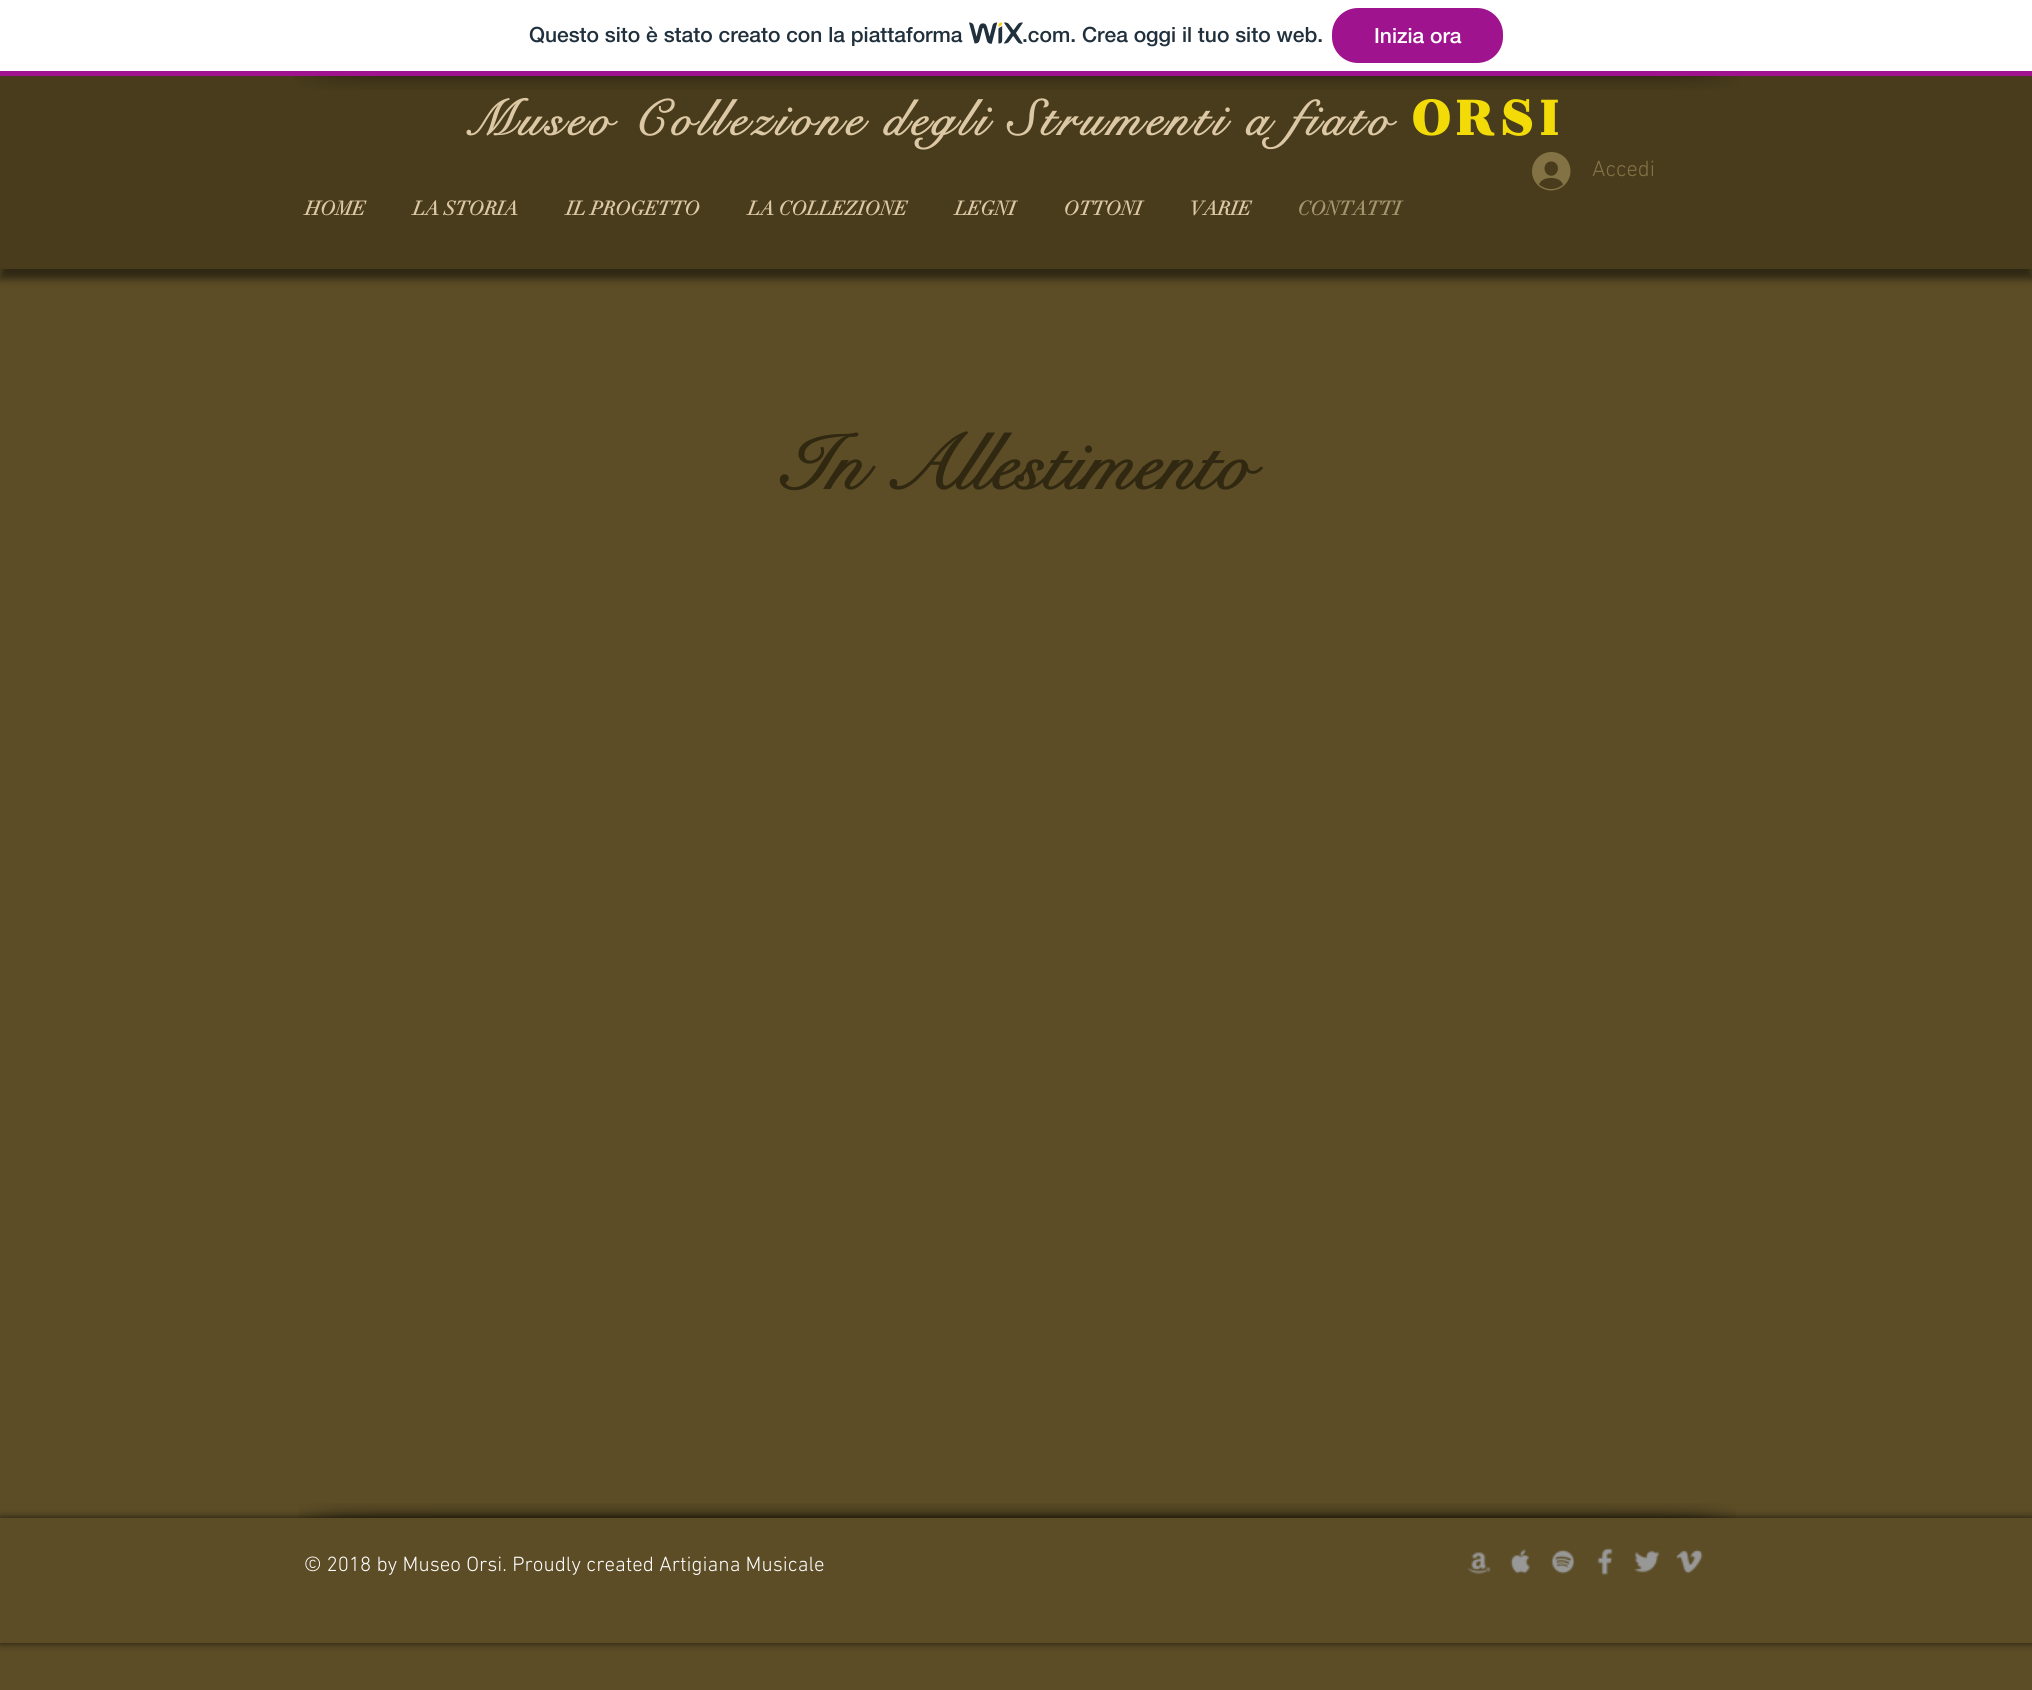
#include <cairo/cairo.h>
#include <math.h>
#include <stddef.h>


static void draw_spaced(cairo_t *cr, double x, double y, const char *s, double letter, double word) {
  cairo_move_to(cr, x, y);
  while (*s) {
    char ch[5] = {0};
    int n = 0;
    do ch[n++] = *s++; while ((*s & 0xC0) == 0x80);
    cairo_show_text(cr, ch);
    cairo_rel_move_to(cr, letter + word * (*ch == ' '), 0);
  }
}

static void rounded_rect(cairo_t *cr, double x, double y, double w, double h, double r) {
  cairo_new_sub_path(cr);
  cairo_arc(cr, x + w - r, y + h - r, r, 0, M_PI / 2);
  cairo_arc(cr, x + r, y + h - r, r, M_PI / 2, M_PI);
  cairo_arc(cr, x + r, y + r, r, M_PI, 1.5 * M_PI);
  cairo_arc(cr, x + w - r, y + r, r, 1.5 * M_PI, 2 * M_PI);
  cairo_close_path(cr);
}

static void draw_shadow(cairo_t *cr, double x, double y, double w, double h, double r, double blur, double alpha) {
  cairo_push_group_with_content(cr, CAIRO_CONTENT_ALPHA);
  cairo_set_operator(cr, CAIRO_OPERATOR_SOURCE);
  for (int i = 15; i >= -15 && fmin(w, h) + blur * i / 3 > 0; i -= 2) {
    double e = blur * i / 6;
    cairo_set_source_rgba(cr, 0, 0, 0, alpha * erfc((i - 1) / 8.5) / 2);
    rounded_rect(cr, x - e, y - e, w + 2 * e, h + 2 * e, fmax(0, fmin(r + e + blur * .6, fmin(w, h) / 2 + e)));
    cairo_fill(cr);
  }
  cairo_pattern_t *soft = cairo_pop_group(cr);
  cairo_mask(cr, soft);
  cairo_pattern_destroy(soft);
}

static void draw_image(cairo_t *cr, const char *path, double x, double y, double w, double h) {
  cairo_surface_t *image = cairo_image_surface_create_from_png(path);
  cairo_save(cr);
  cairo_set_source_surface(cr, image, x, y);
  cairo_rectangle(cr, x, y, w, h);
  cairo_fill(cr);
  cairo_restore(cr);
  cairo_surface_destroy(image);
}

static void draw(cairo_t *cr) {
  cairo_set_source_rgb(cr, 1, 1, 1);
  cairo_paint(cr);
  cairo_set_source_rgb(cr, 92 / 255.0, 77 / 255.0, 38 / 255.0);
  cairo_rectangle(cr, 0, 76, 2032, 1614);
  cairo_fill(cr);
  draw_image(cr, "images/2.png", 294, 76, 138, 14);
  draw_image(cr, "images/3.png", 432, 76, 1170, 14);
  draw_image(cr, "images/4.png", 1602, 76, 138, 14);
  cairo_save(cr);
  cairo_set_fill_rule(cr, CAIRO_FILL_RULE_EVEN_ODD);
  cairo_new_path(cr);
  cairo_move_to(cr, 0, 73);
  cairo_line_to(cr, 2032, 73);
  cairo_line_to(cr, 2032, 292);
  cairo_line_to(cr, 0, 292);
  cairo_close_path(cr);
  cairo_move_to(cr, 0, 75);
  cairo_line_to(cr, 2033, 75);
  cairo_line_to(cr, 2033, 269);
  cairo_line_to(cr, 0, 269);
  cairo_close_path(cr);
  cairo_clip(cr);
  cairo_set_source_rgb(cr, 0, 0, 0);
  draw_shadow(cr, 0, 86, 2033, 193, 0, 4, 0.49);
  cairo_restore(cr);
  cairo_set_source_rgb(cr, 160 / 255.0, 19 / 255.0, 142 / 255.0);
  cairo_rectangle(cr, 0, 71, 2032, 5);
  cairo_fill(cr);
  draw_image(cr, "images/1.png", 969, 22, 54, 22);
  rounded_rect(cr, 1333, 9, 169, 53, 25);
  cairo_fill_preserve(cr);
  cairo_stroke(cr);
  cairo_set_source_rgba(cr, 49 / 255.0, 40 / 255.0, 17 / 255.0, 0.44);
  cairo_rectangle(cr, 0, 76, 2032, 193);
  cairo_fill(cr);
  draw_image(cr, "images/5.png", 1532, 152, 39, 39);
  cairo_save(cr);
  cairo_set_fill_rule(cr, CAIRO_FILL_RULE_EVEN_ODD);
  cairo_new_path(cr);
  cairo_move_to(cr, 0, 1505);
  cairo_line_to(cr, 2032, 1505);
  cairo_line_to(cr, 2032, 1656);
  cairo_line_to(cr, 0, 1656);
  cairo_close_path(cr);
  cairo_move_to(cr, 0, 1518);
  cairo_line_to(cr, 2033, 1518);
  cairo_line_to(cr, 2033, 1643);
  cairo_line_to(cr, 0, 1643);
  cairo_close_path(cr);
  cairo_clip(cr);
  cairo_set_source_rgb(cr, 0, 0, 0);
  draw_shadow(cr, 0, 1518, 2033, 125, 0, 4, 0.7);
  cairo_restore(cr);
  cairo_set_source_rgba(cr, 92 / 255.0, 77 / 255.0, 38 / 255.0, 0.53);
  cairo_rectangle(cr, 0, 1642, 2032, 1);
  cairo_fill(cr);
  draw_image(cr, "images/6.png", 298, 1503, 134, 15);
  draw_image(cr, "images/7.png", 432, 1503, 1170, 15);
  draw_image(cr, "images/8.png", 1602, 1503, 134, 15);
  draw_image(cr, "images/9.png", 1467, 1552, 24, 22);
  draw_image(cr, "images/10.png", 1510, 1549, 21, 25);
  draw_image(cr, "images/11.png", 1551, 1549, 24, 25);
  draw_image(cr, "images/12.png", 1597, 1548, 16, 28);
  draw_image(cr, "images/13.png", 1634, 1550, 26, 23);
  draw_image(cr, "images/14.png", 1676, 1549, 27, 25);
  cairo_select_font_face(cr, "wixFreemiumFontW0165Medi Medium", CAIRO_FONT_SLANT_NORMAL, CAIRO_FONT_WEIGHT_NORMAL);
  cairo_set_font_size(cr, 21);
  cairo_set_source_rgb(cr, 32 / 255.0, 48 / 255.0, 60 / 255.0);
  cairo_move_to(cr, 529, 42);
  cairo_show_text(cr, "Questo sito è stato creato con la piattaforma");
  cairo_move_to(cr, 1022, 42);
  cairo_show_text(cr, ".com. Crea oggi il tuo sito web.");
  cairo_set_source_rgb(cr, 1, 1, 1);
  cairo_move_to(cr, 1374, 43);
  cairo_show_text(cr, "Inizia ora");
  cairo_select_font_face(cr, "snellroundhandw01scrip", CAIRO_FONT_SLANT_NORMAL, CAIRO_FONT_WEIGHT_BOLD);
  cairo_set_font_size(cr, 49.5);
  cairo_set_source_rgb(cr, 220 / 255.0, 200 / 255.0, 164 / 255.0);
  draw_spaced(cr, 464, 135, "Museo Collezione degli Strumenti a fiato", 4.95, 0);
  cairo_select_font_face(cr, "Rozha One", CAIRO_FONT_SLANT_NORMAL, CAIRO_FONT_WEIGHT_BOLD);
  cairo_set_font_size(cr, 60);
  cairo_set_source_rgb(cr, 242 / 255.0, 219 / 255.0, 7 / 255.0);
  draw_spaced(cr, 1412, 135, "ORSI", 6, 0);
  cairo_select_font_face(cr, "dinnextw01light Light", CAIRO_FONT_SLANT_NORMAL, CAIRO_FONT_WEIGHT_NORMAL);
  cairo_set_font_size(cr, 22.5);
  cairo_set_source_rgb(cr, 131 / 255.0, 114 / 255.0, 68 / 255.0);
  cairo_move_to(cr, 1592, 176);
  cairo_show_text(cr, "Accedi");
  cairo_select_font_face(cr, "didot", CAIRO_FONT_SLANT_NORMAL, CAIRO_FONT_WEIGHT_BOLD);
  cairo_set_font_size(cr, 19.5);
  cairo_set_source_rgb(cr, 220 / 255.0, 200 / 255.0, 164 / 255.0);
  cairo_move_to(cr, 305, 215);
  cairo_show_text(cr, "HOME");
  cairo_move_to(cr, 413, 215);
  cairo_show_text(cr, "LA STORIA");
  cairo_move_to(cr, 566, 215);
  cairo_show_text(cr, "IL PROGETTO");
  cairo_move_to(cr, 748, 215);
  cairo_show_text(cr, "LA COLLEZIONE");
  cairo_move_to(cr, 955, 215);
  cairo_show_text(cr, "LEGNI");
  cairo_move_to(cr, 1064, 215);
  cairo_show_text(cr, "OTTONI");
  cairo_move_to(cr, 1190, 215);
  cairo_show_text(cr, "VARIE");
  cairo_set_source_rgb(cr, 163 / 255.0, 149 / 255.0, 109 / 255.0);
  cairo_move_to(cr, 1298, 215);
  cairo_show_text(cr, "CONTATTI");
  cairo_select_font_face(cr, "snellroundhandw01scrip", CAIRO_FONT_SLANT_NORMAL, CAIRO_FONT_WEIGHT_BOLD);
  cairo_set_font_size(cr, 78);
  cairo_set_source_rgb(cr, 49 / 255.0, 40 / 255.0, 17 / 255.0);
  cairo_move_to(cr, 781, 489);
  cairo_show_text(cr, "In Allestimento");
  cairo_select_font_face(cr, "dinnextw01light Light", CAIRO_FONT_SLANT_NORMAL, CAIRO_FONT_WEIGHT_NORMAL);
  cairo_set_font_size(cr, 21);
  cairo_set_source_rgb(cr, 1, 1, 1);
  cairo_move_to(cr, 304, 1571);
  cairo_show_text(cr, "© 2018 by Museo Orsi. Proudly created Artigiana Musicale");
}

int main(void) {
  cairo_surface_t *surface = cairo_image_surface_create(CAIRO_FORMAT_RGB24, 2032, 1690);
  cairo_t *cr = cairo_create(surface);
  cairo_font_options_t *options = cairo_font_options_create();
  cairo_font_options_set_hint_metrics(options, CAIRO_HINT_METRICS_OFF);
  cairo_font_options_set_hint_style(options, CAIRO_HINT_STYLE_NONE);
  cairo_set_font_options(cr, options);
  cairo_set_miter_limit(cr, 4);
  draw(cr);
  cairo_surface_write_to_png(surface, "out.png");
  cairo_font_options_destroy(options);
  cairo_destroy(cr);
  cairo_surface_destroy(surface);
  return 0;
}
